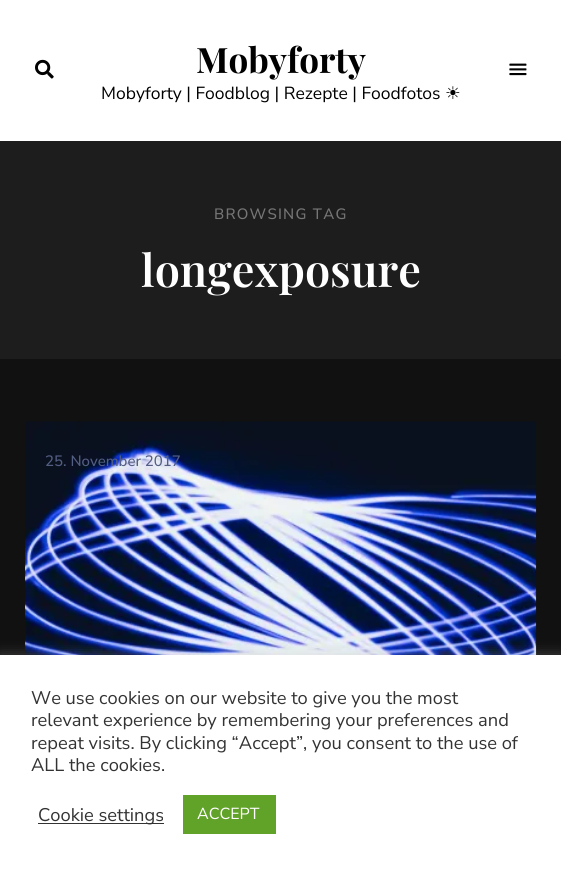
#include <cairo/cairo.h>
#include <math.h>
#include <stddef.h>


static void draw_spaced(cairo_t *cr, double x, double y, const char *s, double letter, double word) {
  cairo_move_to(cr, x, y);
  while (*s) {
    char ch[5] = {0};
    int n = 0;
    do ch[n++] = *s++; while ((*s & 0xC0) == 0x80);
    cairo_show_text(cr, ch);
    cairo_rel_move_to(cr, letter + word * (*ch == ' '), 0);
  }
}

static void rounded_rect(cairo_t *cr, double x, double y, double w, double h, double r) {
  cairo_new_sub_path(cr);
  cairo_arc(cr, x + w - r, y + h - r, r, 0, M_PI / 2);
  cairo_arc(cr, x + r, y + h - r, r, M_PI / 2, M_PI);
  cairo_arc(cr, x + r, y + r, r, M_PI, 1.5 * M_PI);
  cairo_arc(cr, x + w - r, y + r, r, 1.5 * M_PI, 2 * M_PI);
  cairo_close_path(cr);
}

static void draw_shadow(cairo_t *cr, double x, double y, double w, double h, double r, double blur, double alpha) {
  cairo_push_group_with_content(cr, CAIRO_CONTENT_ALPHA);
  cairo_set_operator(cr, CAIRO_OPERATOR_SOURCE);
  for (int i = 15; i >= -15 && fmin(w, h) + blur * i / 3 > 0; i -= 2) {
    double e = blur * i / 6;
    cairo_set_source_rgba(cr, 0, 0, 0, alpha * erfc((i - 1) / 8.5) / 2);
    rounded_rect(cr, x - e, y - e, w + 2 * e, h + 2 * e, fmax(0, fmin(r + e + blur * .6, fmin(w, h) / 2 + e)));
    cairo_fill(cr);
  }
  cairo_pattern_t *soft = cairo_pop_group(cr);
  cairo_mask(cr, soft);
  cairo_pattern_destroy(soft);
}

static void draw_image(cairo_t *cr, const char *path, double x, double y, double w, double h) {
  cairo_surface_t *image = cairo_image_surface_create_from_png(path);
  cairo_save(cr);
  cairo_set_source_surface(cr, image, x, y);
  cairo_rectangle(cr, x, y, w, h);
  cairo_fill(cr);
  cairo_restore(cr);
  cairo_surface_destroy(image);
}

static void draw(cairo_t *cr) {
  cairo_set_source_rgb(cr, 17 / 255.0, 17 / 255.0, 17 / 255.0);
  cairo_paint(cr);
  cairo_set_source_rgb(cr, 1, 1, 1);
  cairo_rectangle(cr, 0, 0, 561, 141);
  cairo_fill(cr);
  draw_image(cr, "images/1.png", 35, 59, 19, 20);
  draw_image(cr, "images/2.png", 509, 63, 18, 13);
  cairo_set_source_rgb(cr, 29 / 255.0, 29 / 255.0, 29 / 255.0);
  cairo_rectangle(cr, 0, 141, 561, 218);
  cairo_fill(cr);
  draw_image(cr, "images/3.png", 25, 421, 512, 234);
  cairo_set_source_rgb(cr, 172 / 255.0, 171 / 255.0, 171 / 255.0);
  draw_shadow(cr, 0, 654, 561, 216, 0, 6, 0.3);
  cairo_set_source_rgb(cr, 1, 1, 1);
  cairo_rectangle(cr, 0, 655, 561, 216);
  cairo_fill(cr);
  cairo_set_source_rgb(cr, 51 / 255.0, 51 / 255.0, 51 / 255.0);
  cairo_rectangle(cr, 38, 823, 126, 1);
  cairo_fill(cr);
  cairo_set_source_rgb(cr, 97 / 255.0, 162 / 255.0, 41 / 255.0);
  cairo_rectangle(cr, 183, 795, 93, 39);
  cairo_fill(cr);
  cairo_select_font_face(cr, "Playfair Display", CAIRO_FONT_SLANT_NORMAL, CAIRO_FONT_WEIGHT_BOLD);
  cairo_set_font_size(cr, 35);
  cairo_set_source_rgb(cr, 0, 0, 0);
  cairo_move_to(cr, 196, 73);
  cairo_show_text(cr, "Mobyforty");
  cairo_select_font_face(cr, "Nunito Sans", CAIRO_FONT_SLANT_NORMAL, CAIRO_FONT_WEIGHT_NORMAL);
  cairo_set_font_size(cr, 17.5);
  cairo_move_to(cr, 101, 99);
  cairo_show_text(cr, "Mobyforty | Foodblog | Rezepte | Foodfotos");
  cairo_select_font_face(cr, "DejaVu Sans", CAIRO_FONT_SLANT_NORMAL, CAIRO_FONT_WEIGHT_NORMAL);
  cairo_move_to(cr, 445, 99);
  cairo_show_text(cr, "☀");
  cairo_select_font_face(cr, "Nunito Sans Medium", CAIRO_FONT_SLANT_NORMAL, CAIRO_FONT_WEIGHT_NORMAL);
  cairo_set_font_size(cr, 15);
  cairo_set_source_rgb(cr, 118 / 255.0, 118 / 255.0, 118 / 255.0);
  draw_spaced(cr, 214, 219, "BROWSING TAG", 1.25, 0);
  cairo_select_font_face(cr, "Playfair Display SemiBold", CAIRO_FONT_SLANT_NORMAL, CAIRO_FONT_WEIGHT_NORMAL);
  cairo_set_font_size(cr, 45);
  cairo_set_source_rgb(cr, 1, 1, 1);
  cairo_move_to(cr, 141, 287);
  cairo_show_text(cr, "longexposure");
  cairo_select_font_face(cr, "Nunito Sans Medium", CAIRO_FONT_SLANT_NORMAL, CAIRO_FONT_WEIGHT_NORMAL);
  cairo_set_font_size(cr, 15);
  cairo_set_source_rgb(cr, 83 / 255.0, 94 / 255.0, 131 / 255.0);
  cairo_move_to(cr, 45, 466);
  cairo_show_text(cr, "25. November 2017");
  cairo_select_font_face(cr, "Nunito Sans", CAIRO_FONT_SLANT_NORMAL, CAIRO_FONT_WEIGHT_NORMAL);
  cairo_set_font_size(cr, 18.3);
  cairo_set_source_rgb(cr, 51 / 255.0, 51 / 255.0, 51 / 255.0);
  cairo_move_to(cr, 31, 704);
  cairo_show_text(cr, "We use cookies on our website to give you the most");
  cairo_move_to(cr, 31, 726);
  cairo_show_text(cr, "relevant experience by remembering your preferences and");
  cairo_move_to(cr, 31, 749);
  cairo_show_text(cr, "repeat visits. By clicking “Accept”, you consent to the use of");
  cairo_move_to(cr, 31, 771);
  cairo_show_text(cr, "ALL the cookies.");
  cairo_move_to(cr, 38, 821);
  cairo_show_text(cr, "Cookie settings");
  cairo_set_font_size(cr, 16);
  cairo_set_source_rgb(cr, 1, 1, 1);
  cairo_move_to(cr, 197, 819);
  cairo_show_text(cr, "ACCEPT");
}

int main(void) {
  cairo_surface_t *surface = cairo_image_surface_create(CAIRO_FORMAT_RGB24, 561, 871);
  cairo_t *cr = cairo_create(surface);
  cairo_font_options_t *options = cairo_font_options_create();
  cairo_font_options_set_hint_metrics(options, CAIRO_HINT_METRICS_OFF);
  cairo_font_options_set_hint_style(options, CAIRO_HINT_STYLE_NONE);
  cairo_set_font_options(cr, options);
  cairo_set_miter_limit(cr, 4);
  draw(cr);
  cairo_surface_write_to_png(surface, "out.png");
  cairo_font_options_destroy(options);
  cairo_destroy(cr);
  cairo_surface_destroy(surface);
  return 0;
}
